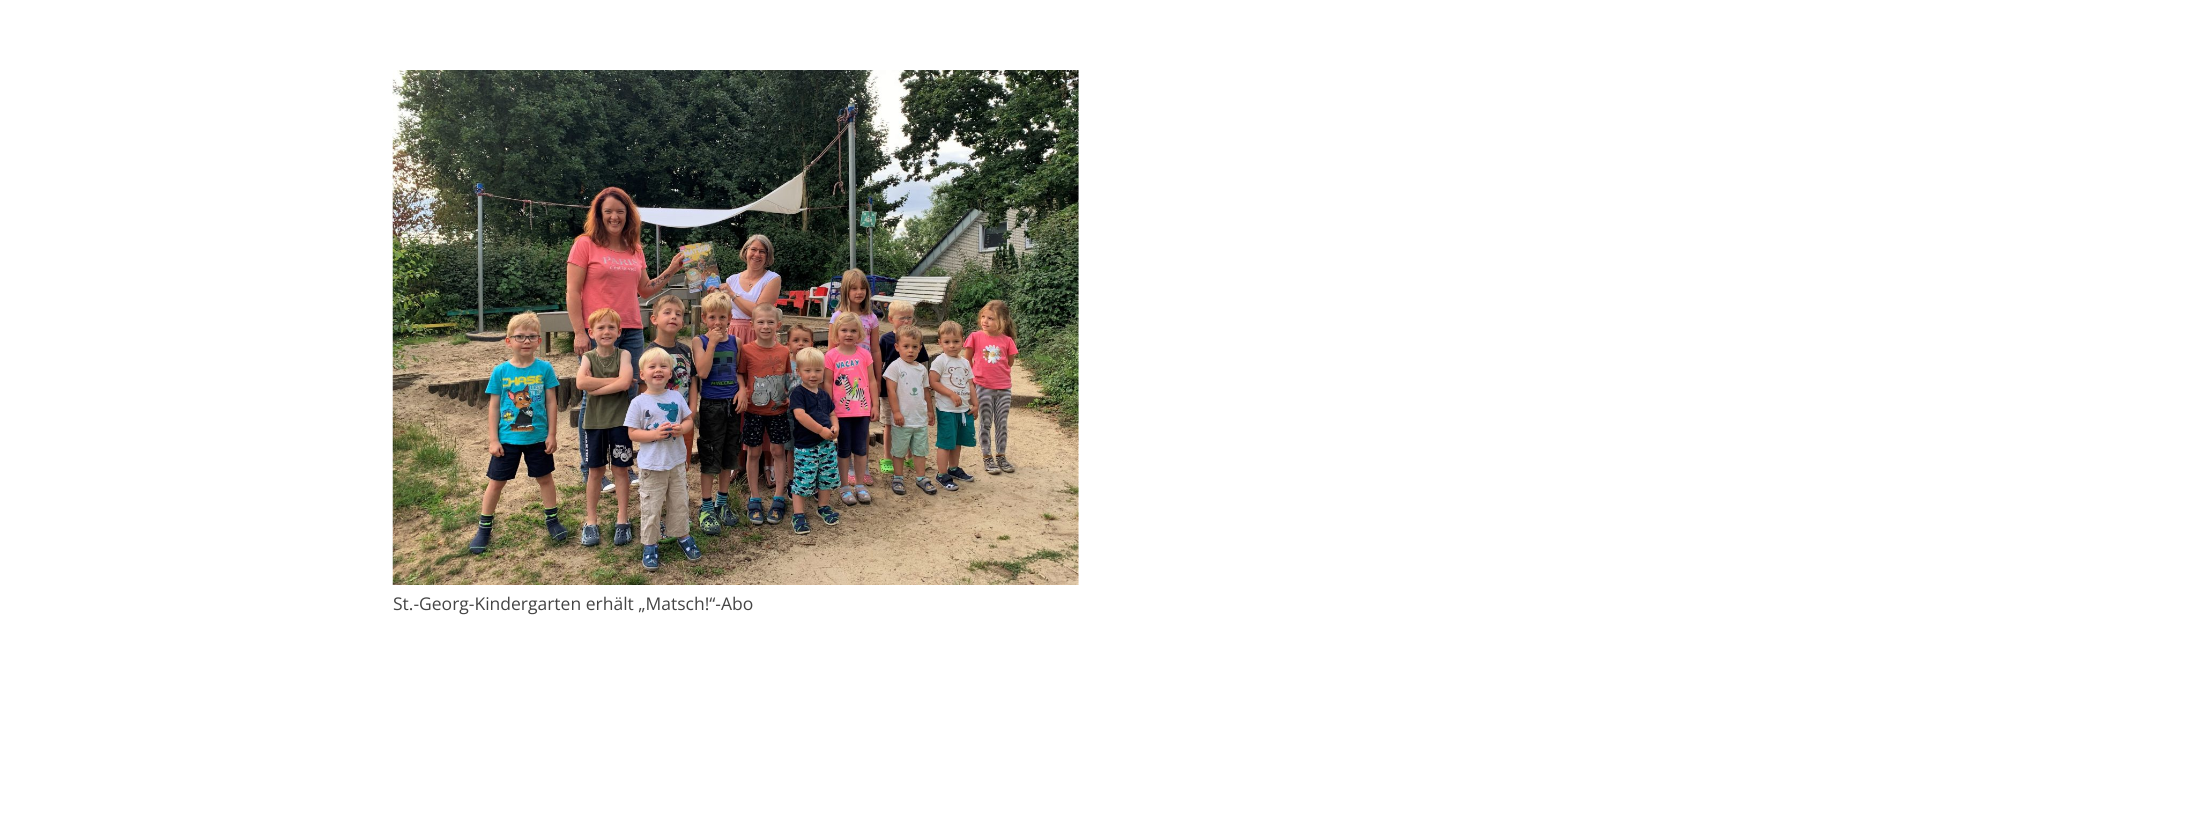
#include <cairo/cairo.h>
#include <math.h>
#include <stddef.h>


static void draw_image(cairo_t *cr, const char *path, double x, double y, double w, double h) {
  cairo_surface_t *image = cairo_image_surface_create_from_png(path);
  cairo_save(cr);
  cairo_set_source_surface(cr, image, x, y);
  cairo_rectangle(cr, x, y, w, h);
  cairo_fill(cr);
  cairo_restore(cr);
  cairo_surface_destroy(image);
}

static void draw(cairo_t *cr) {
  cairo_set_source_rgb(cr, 1, 1, 1);
  cairo_paint(cr);
  draw_image(cr, "images/1.png", 392, 70, 687, 515);
  cairo_select_font_face(cr, "Open Sans", CAIRO_FONT_SLANT_NORMAL, CAIRO_FONT_WEIGHT_NORMAL);
  cairo_set_font_size(cr, 17.5);
  cairo_set_source_rgb(cr, 68 / 255.0, 68 / 255.0, 68 / 255.0);
  cairo_move_to(cr, 393, 610);
  cairo_show_text(cr, "St.-Georg-Kindergarten erhält „Matsch!“-Abo");
}

int main(void) {
  cairo_surface_t *surface = cairo_image_surface_create(CAIRO_FORMAT_RGB24, 2210, 830);
  cairo_t *cr = cairo_create(surface);
  cairo_font_options_t *options = cairo_font_options_create();
  cairo_font_options_set_hint_metrics(options, CAIRO_HINT_METRICS_OFF);
  cairo_font_options_set_hint_style(options, CAIRO_HINT_STYLE_NONE);
  cairo_set_font_options(cr, options);
  cairo_set_miter_limit(cr, 4);
  draw(cr);
  cairo_surface_write_to_png(surface, "out.png");
  cairo_font_options_destroy(options);
  cairo_destroy(cr);
  cairo_surface_destroy(surface);
  return 0;
}
